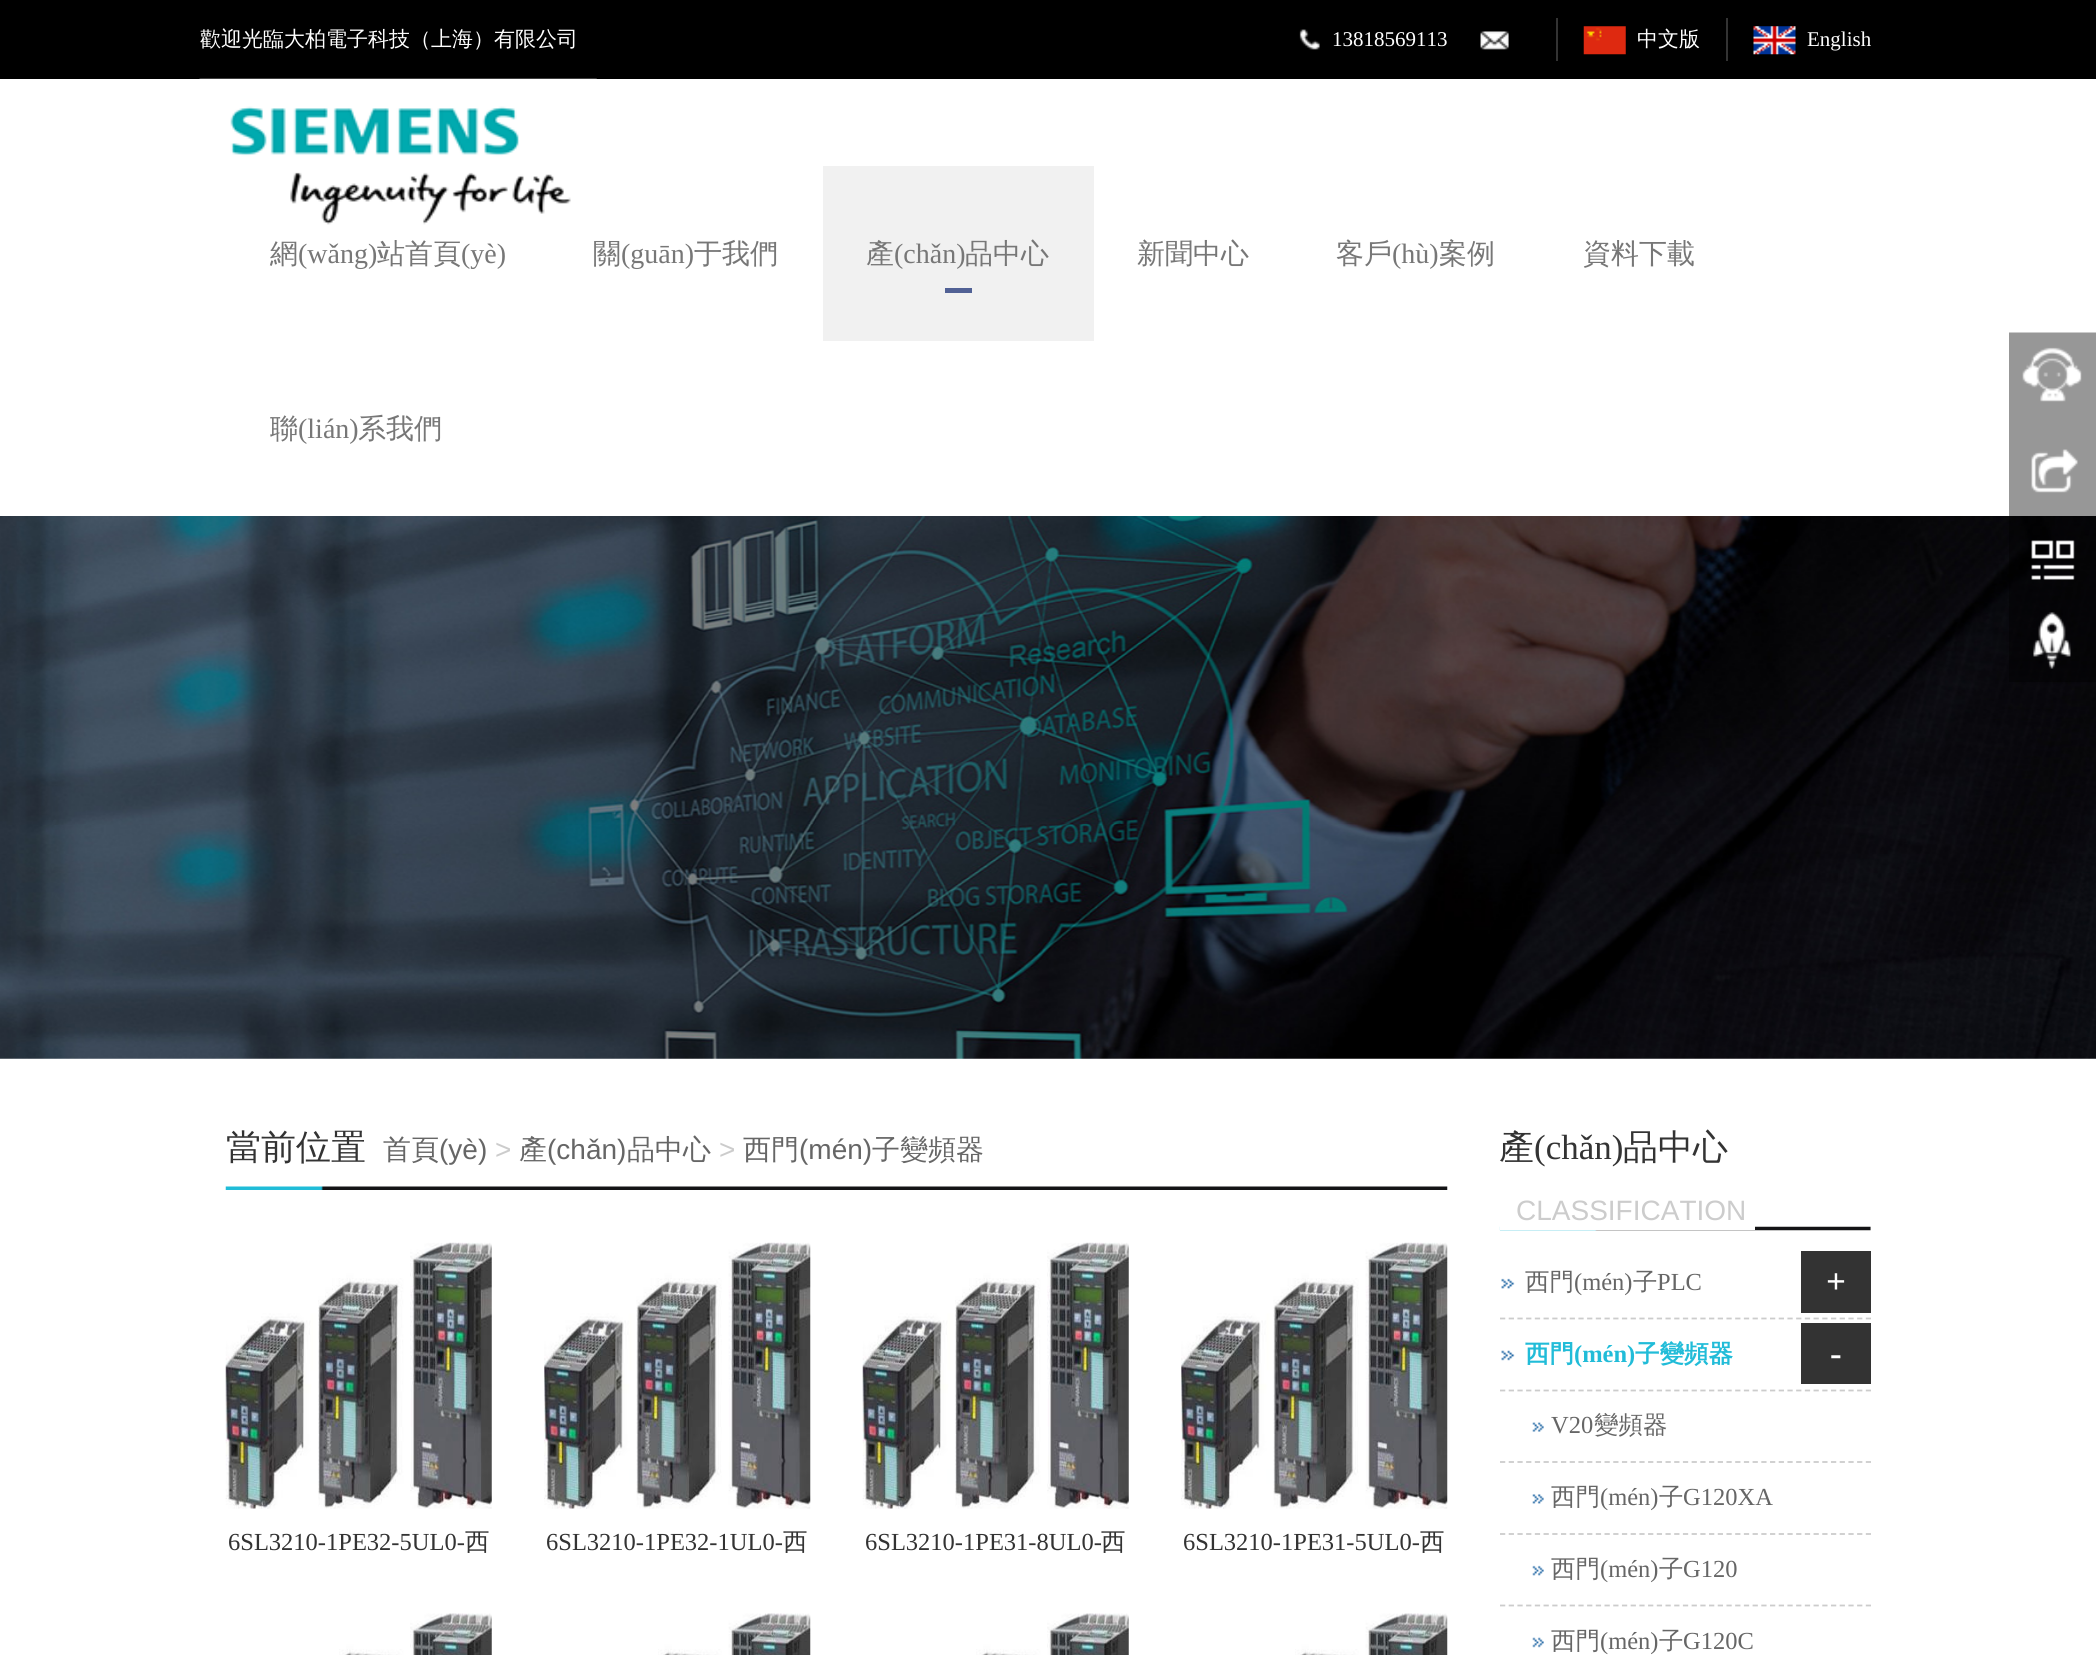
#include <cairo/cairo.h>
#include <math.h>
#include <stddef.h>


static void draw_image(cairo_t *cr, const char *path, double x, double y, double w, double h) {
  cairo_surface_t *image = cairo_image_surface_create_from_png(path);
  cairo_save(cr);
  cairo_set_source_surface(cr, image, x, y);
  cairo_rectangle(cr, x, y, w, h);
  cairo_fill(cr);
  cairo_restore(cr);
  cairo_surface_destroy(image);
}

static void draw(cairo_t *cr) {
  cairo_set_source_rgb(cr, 1, 1, 1);
  cairo_paint(cr);
  cairo_set_source_rgb(cr, 0, 0, 0);
  cairo_rectangle(cr, 0, 0, 2096, 79);
  cairo_fill(cr);
  draw_image(cr, "images/1.png", 1299, 29, 21, 21);
  draw_image(cr, "images/2.png", 1480, 31, 29, 19);
  draw_image(cr, "images/3.png", 1583, 26, 43, 29);
  cairo_set_source_rgb(cr, 51 / 255.0, 51 / 255.0, 51 / 255.0);
  cairo_rectangle(cr, 1556, 18, 2, 43);
  cairo_fill(cr);
  draw_image(cr, "images/4.png", 1753, 26, 43, 29);
  cairo_rectangle(cr, 1726, 18, 2, 43);
  cairo_fill(cr);
  draw_image(cr, "images/5.png", 199, 78, 398, 147);
  cairo_set_source_rgb(cr, 241 / 255.0, 241 / 255.0, 241 / 255.0);
  cairo_rectangle(cr, 823, 166, 271, 175);
  cairo_fill(cr);
  cairo_set_source_rgb(cr, 81 / 255.0, 97 / 255.0, 149 / 255.0);
  cairo_rectangle(cr, 945, 288, 27, 5);
  cairo_fill(cr);
  draw_image(cr, "images/7.png", 0, 516, 2096, 543);
  draw_image(cr, "images/6.png", 2009, 332, 87, 350);
  draw_image(cr, "images/8.png", 225, 1186, 1223, 4);
  draw_image(cr, "images/9.png", 225, 1242, 267, 267);
  draw_image(cr, "images/10.png", 544, 1242, 267, 267);
  draw_image(cr, "images/11.png", 862, 1242, 267, 267);
  draw_image(cr, "images/10.png", 1181, 1242, 267, 267);
  draw_image(cr, "images/12.png", 339, 1613, 153, 42);
  draw_image(cr, "images/13.png", 658, 1613, 153, 42);
  draw_image(cr, "images/14.png", 976, 1613, 153, 42);
  draw_image(cr, "images/13.png", 1295, 1613, 153, 42);
  draw_image(cr, "images/15.png", 1499, 1226, 372, 5);
  cairo_set_source_rgb(cr, 1, 1, 1);
  cairo_rectangle(cr, 1500, 1226, 255, 4);
  cairo_fill(cr);
  draw_image(cr, "images/16.png", 1501, 1278, 14, 11);
  cairo_new_path(cr);
  cairo_move_to(cr, 1500, 1318.5);
  cairo_line_to(cr, 1871, 1318.5);
  cairo_set_source_rgb(cr, 204 / 255.0, 204 / 255.0, 204 / 255.0);
  cairo_set_line_width(cr, 1.8);
  cairo_set_dash(cr, (double[]){5.25, 3.46}, 2, 0);
  cairo_stroke(cr);
  cairo_set_source_rgb(cr, 51 / 255.0, 51 / 255.0, 51 / 255.0);
  cairo_rectangle(cr, 1801, 1251, 70, 62);
  cairo_fill(cr);
  draw_image(cr, "images/17.png", 1501, 1350, 14, 11);
  cairo_new_path(cr);
  cairo_move_to(cr, 1500, 1390.5);
  cairo_line_to(cr, 1871, 1390.5);
  cairo_set_source_rgb(cr, 204 / 255.0, 204 / 255.0, 204 / 255.0);
  cairo_stroke(cr);
  cairo_set_source_rgb(cr, 51 / 255.0, 51 / 255.0, 51 / 255.0);
  cairo_rectangle(cr, 1801, 1323, 70, 61);
  cairo_fill(cr);
  draw_image(cr, "images/18.png", 1532, 1422, 12, 10);
  cairo_new_path(cr);
  cairo_move_to(cr, 1500, 1462);
  cairo_line_to(cr, 1871, 1462);
  cairo_set_source_rgb(cr, 204 / 255.0, 204 / 255.0, 204 / 255.0);
  cairo_stroke(cr);
  draw_image(cr, "images/19.png", 1532, 1494, 12, 10);
  cairo_new_path(cr);
  cairo_move_to(cr, 1500, 1534);
  cairo_line_to(cr, 1871, 1534);
  cairo_stroke(cr);
  draw_image(cr, "images/20.png", 1532, 1565, 12, 11);
  cairo_new_path(cr);
  cairo_move_to(cr, 1500, 1605.5);
  cairo_line_to(cr, 1871, 1605.5);
  cairo_stroke(cr);
  draw_image(cr, "images/21.png", 1532, 1637, 12, 11);
  cairo_select_font_face(cr, "WenQuanYi Zen Hei Medium", CAIRO_FONT_SLANT_NORMAL, CAIRO_FONT_WEIGHT_NORMAL);
  cairo_set_font_size(cr, 21);
  cairo_set_source_rgb(cr, 1, 1, 1);
  cairo_move_to(cr, 200, 46);
  cairo_show_text(cr, "歡迎光臨大柏電子科技（上海）有限公司");
  cairo_select_font_face(cr, "Liberation Serif", CAIRO_FONT_SLANT_NORMAL, CAIRO_FONT_WEIGHT_NORMAL);
  cairo_move_to(cr, 1332, 46);
  cairo_show_text(cr, "13818569113");
  cairo_select_font_face(cr, "WenQuanYi Zen Hei Medium", CAIRO_FONT_SLANT_NORMAL, CAIRO_FONT_WEIGHT_NORMAL);
  cairo_move_to(cr, 1637, 46);
  cairo_show_text(cr, "中文版");
  cairo_select_font_face(cr, "Liberation Serif", CAIRO_FONT_SLANT_NORMAL, CAIRO_FONT_WEIGHT_NORMAL);
  cairo_move_to(cr, 1807, 46);
  cairo_show_text(cr, "English");
  cairo_select_font_face(cr, "WenQuanYi Zen Hei Medium", CAIRO_FONT_SLANT_NORMAL, CAIRO_FONT_WEIGHT_NORMAL);
  cairo_set_font_size(cr, 28);
  cairo_set_source_rgb(cr, 119 / 255.0, 119 / 255.0, 119 / 255.0);
  cairo_move_to(cr, 270, 263);
  cairo_show_text(cr, "網");
  cairo_select_font_face(cr, "Liberation Serif", CAIRO_FONT_SLANT_NORMAL, CAIRO_FONT_WEIGHT_NORMAL);
  cairo_move_to(cr, 298, 263);
  cairo_show_text(cr, "(wǎng)");
  cairo_select_font_face(cr, "WenQuanYi Zen Hei Medium", CAIRO_FONT_SLANT_NORMAL, CAIRO_FONT_WEIGHT_NORMAL);
  cairo_move_to(cr, 377, 263);
  cairo_show_text(cr, "站首頁");
  cairo_select_font_face(cr, "Liberation Serif", CAIRO_FONT_SLANT_NORMAL, CAIRO_FONT_WEIGHT_NORMAL);
  cairo_move_to(cr, 461, 263);
  cairo_show_text(cr, "(yè)");
  cairo_select_font_face(cr, "WenQuanYi Zen Hei Medium", CAIRO_FONT_SLANT_NORMAL, CAIRO_FONT_WEIGHT_NORMAL);
  cairo_move_to(cr, 593, 263);
  cairo_show_text(cr, "關");
  cairo_select_font_face(cr, "Liberation Serif", CAIRO_FONT_SLANT_NORMAL, CAIRO_FONT_WEIGHT_NORMAL);
  cairo_move_to(cr, 621, 263);
  cairo_show_text(cr, "(guān)");
  cairo_select_font_face(cr, "WenQuanYi Zen Hei Medium", CAIRO_FONT_SLANT_NORMAL, CAIRO_FONT_WEIGHT_NORMAL);
  cairo_move_to(cr, 694, 263);
  cairo_show_text(cr, "于我們");
  cairo_move_to(cr, 866, 263);
  cairo_show_text(cr, "產");
  cairo_select_font_face(cr, "Liberation Serif", CAIRO_FONT_SLANT_NORMAL, CAIRO_FONT_WEIGHT_NORMAL);
  cairo_move_to(cr, 894, 263);
  cairo_show_text(cr, "(chǎn)");
  cairo_select_font_face(cr, "WenQuanYi Zen Hei Medium", CAIRO_FONT_SLANT_NORMAL, CAIRO_FONT_WEIGHT_NORMAL);
  cairo_move_to(cr, 965, 263);
  cairo_show_text(cr, "品中心");
  cairo_move_to(cr, 1137, 263);
  cairo_show_text(cr, "新聞中心");
  cairo_move_to(cr, 1336, 263);
  cairo_show_text(cr, "客戶");
  cairo_select_font_face(cr, "Liberation Serif", CAIRO_FONT_SLANT_NORMAL, CAIRO_FONT_WEIGHT_NORMAL);
  cairo_move_to(cr, 1392, 263);
  cairo_show_text(cr, "(hù)");
  cairo_select_font_face(cr, "WenQuanYi Zen Hei Medium", CAIRO_FONT_SLANT_NORMAL, CAIRO_FONT_WEIGHT_NORMAL);
  cairo_move_to(cr, 1439, 263);
  cairo_show_text(cr, "案例");
  cairo_move_to(cr, 1583, 263);
  cairo_show_text(cr, "資料下載");
  cairo_move_to(cr, 270, 438);
  cairo_show_text(cr, "聯");
  cairo_select_font_face(cr, "Liberation Serif", CAIRO_FONT_SLANT_NORMAL, CAIRO_FONT_WEIGHT_NORMAL);
  cairo_move_to(cr, 298, 438);
  cairo_show_text(cr, "(lián)");
  cairo_select_font_face(cr, "WenQuanYi Zen Hei Medium", CAIRO_FONT_SLANT_NORMAL, CAIRO_FONT_WEIGHT_NORMAL);
  cairo_move_to(cr, 358, 438);
  cairo_show_text(cr, "系我們");
  cairo_set_font_size(cr, 35);
  cairo_set_source_rgb(cr, 51 / 255.0, 51 / 255.0, 51 / 255.0);
  cairo_move_to(cr, 226, 1159);
  cairo_show_text(cr, "當前位置");
  cairo_set_font_size(cr, 28);
  cairo_set_source_rgb(cr, 102 / 255.0, 102 / 255.0, 102 / 255.0);
  cairo_move_to(cr, 383, 1159);
  cairo_show_text(cr, "首頁");
  cairo_select_font_face(cr, "Liberation Sans", CAIRO_FONT_SLANT_NORMAL, CAIRO_FONT_WEIGHT_NORMAL);
  cairo_move_to(cr, 439, 1159);
  cairo_show_text(cr, "(yè)");
  cairo_set_source_rgb(cr, 204 / 255.0, 204 / 255.0, 204 / 255.0);
  cairo_move_to(cr, 495, 1159);
  cairo_show_text(cr, ">");
  cairo_select_font_face(cr, "WenQuanYi Zen Hei Medium", CAIRO_FONT_SLANT_NORMAL, CAIRO_FONT_WEIGHT_NORMAL);
  cairo_set_source_rgb(cr, 102 / 255.0, 102 / 255.0, 102 / 255.0);
  cairo_move_to(cr, 519, 1159);
  cairo_show_text(cr, "產");
  cairo_select_font_face(cr, "Liberation Sans", CAIRO_FONT_SLANT_NORMAL, CAIRO_FONT_WEIGHT_NORMAL);
  cairo_move_to(cr, 547, 1159);
  cairo_show_text(cr, "(chǎn)");
  cairo_select_font_face(cr, "WenQuanYi Zen Hei Medium", CAIRO_FONT_SLANT_NORMAL, CAIRO_FONT_WEIGHT_NORMAL);
  cairo_move_to(cr, 627, 1159);
  cairo_show_text(cr, "品中心");
  cairo_select_font_face(cr, "Liberation Sans", CAIRO_FONT_SLANT_NORMAL, CAIRO_FONT_WEIGHT_NORMAL);
  cairo_set_source_rgb(cr, 204 / 255.0, 204 / 255.0, 204 / 255.0);
  cairo_move_to(cr, 719, 1159);
  cairo_show_text(cr, ">");
  cairo_select_font_face(cr, "WenQuanYi Zen Hei Medium", CAIRO_FONT_SLANT_NORMAL, CAIRO_FONT_WEIGHT_NORMAL);
  cairo_set_source_rgb(cr, 102 / 255.0, 102 / 255.0, 102 / 255.0);
  cairo_move_to(cr, 743, 1159);
  cairo_show_text(cr, "西門");
  cairo_select_font_face(cr, "Liberation Sans", CAIRO_FONT_SLANT_NORMAL, CAIRO_FONT_WEIGHT_NORMAL);
  cairo_move_to(cr, 799, 1159);
  cairo_show_text(cr, "(mén)");
  cairo_select_font_face(cr, "WenQuanYi Zen Hei Medium", CAIRO_FONT_SLANT_NORMAL, CAIRO_FONT_WEIGHT_NORMAL);
  cairo_move_to(cr, 872, 1159);
  cairo_show_text(cr, "子變頻器");
  cairo_select_font_face(cr, "Liberation Serif", CAIRO_FONT_SLANT_NORMAL, CAIRO_FONT_WEIGHT_NORMAL);
  cairo_set_font_size(cr, 24.5);
  cairo_set_source_rgb(cr, 51 / 255.0, 51 / 255.0, 51 / 255.0);
  cairo_move_to(cr, 228, 1550);
  cairo_show_text(cr, "6SL3210-1PE32-5UL0-");
  cairo_select_font_face(cr, "WenQuanYi Zen Hei Medium", CAIRO_FONT_SLANT_NORMAL, CAIRO_FONT_WEIGHT_NORMAL);
  cairo_move_to(cr, 465, 1550);
  cairo_show_text(cr, "西");
  cairo_select_font_face(cr, "Liberation Serif", CAIRO_FONT_SLANT_NORMAL, CAIRO_FONT_WEIGHT_NORMAL);
  cairo_move_to(cr, 546, 1550);
  cairo_show_text(cr, "6SL3210-1PE32-1UL0-");
  cairo_select_font_face(cr, "WenQuanYi Zen Hei Medium", CAIRO_FONT_SLANT_NORMAL, CAIRO_FONT_WEIGHT_NORMAL);
  cairo_move_to(cr, 783, 1550);
  cairo_show_text(cr, "西");
  cairo_select_font_face(cr, "Liberation Serif", CAIRO_FONT_SLANT_NORMAL, CAIRO_FONT_WEIGHT_NORMAL);
  cairo_move_to(cr, 865, 1550);
  cairo_show_text(cr, "6SL3210-1PE31-8UL0-");
  cairo_select_font_face(cr, "WenQuanYi Zen Hei Medium", CAIRO_FONT_SLANT_NORMAL, CAIRO_FONT_WEIGHT_NORMAL);
  cairo_move_to(cr, 1101, 1550);
  cairo_show_text(cr, "西");
  cairo_select_font_face(cr, "Liberation Serif", CAIRO_FONT_SLANT_NORMAL, CAIRO_FONT_WEIGHT_NORMAL);
  cairo_move_to(cr, 1183, 1550);
  cairo_show_text(cr, "6SL3210-1PE31-5UL0-");
  cairo_select_font_face(cr, "WenQuanYi Zen Hei Medium", CAIRO_FONT_SLANT_NORMAL, CAIRO_FONT_WEIGHT_NORMAL);
  cairo_move_to(cr, 1420, 1550);
  cairo_show_text(cr, "西");
  cairo_set_font_size(cr, 35);
  cairo_move_to(cr, 1499, 1159);
  cairo_show_text(cr, "產");
  cairo_select_font_face(cr, "Liberation Serif", CAIRO_FONT_SLANT_NORMAL, CAIRO_FONT_WEIGHT_NORMAL);
  cairo_move_to(cr, 1534, 1159);
  cairo_show_text(cr, "(chǎn)");
  cairo_select_font_face(cr, "WenQuanYi Zen Hei Medium", CAIRO_FONT_SLANT_NORMAL, CAIRO_FONT_WEIGHT_NORMAL);
  cairo_move_to(cr, 1623, 1159);
  cairo_show_text(cr, "品中心");
  cairo_select_font_face(cr, "Liberation Sans", CAIRO_FONT_SLANT_NORMAL, CAIRO_FONT_WEIGHT_NORMAL);
  cairo_set_font_size(cr, 28);
  cairo_set_source_rgb(cr, 204 / 255.0, 204 / 255.0, 204 / 255.0);
  cairo_move_to(cr, 1516, 1220);
  cairo_show_text(cr, "CLASSIFICATION");
  cairo_select_font_face(cr, "WenQuanYi Zen Hei Medium", CAIRO_FONT_SLANT_NORMAL, CAIRO_FONT_WEIGHT_NORMAL);
  cairo_set_font_size(cr, 24.5);
  cairo_set_source_rgb(cr, 102 / 255.0, 102 / 255.0, 102 / 255.0);
  cairo_move_to(cr, 1525, 1290);
  cairo_show_text(cr, "西門");
  cairo_select_font_face(cr, "Liberation Serif", CAIRO_FONT_SLANT_NORMAL, CAIRO_FONT_WEIGHT_NORMAL);
  cairo_move_to(cr, 1574, 1290);
  cairo_show_text(cr, "(mén)");
  cairo_select_font_face(cr, "WenQuanYi Zen Hei Medium", CAIRO_FONT_SLANT_NORMAL, CAIRO_FONT_WEIGHT_NORMAL);
  cairo_move_to(cr, 1633, 1290);
  cairo_show_text(cr, "子");
  cairo_select_font_face(cr, "Liberation Serif", CAIRO_FONT_SLANT_NORMAL, CAIRO_FONT_WEIGHT_NORMAL);
  cairo_move_to(cr, 1657, 1290);
  cairo_show_text(cr, "PLC");
  cairo_select_font_face(cr, "Liberation Serif", CAIRO_FONT_SLANT_NORMAL, CAIRO_FONT_WEIGHT_BOLD);
  cairo_set_font_size(cr, 35);
  cairo_set_source_rgb(cr, 1, 1, 1);
  cairo_move_to(cr, 1826, 1293);
  cairo_show_text(cr, "+");
  cairo_select_font_face(cr, "WenQuanYi Zen Hei", CAIRO_FONT_SLANT_NORMAL, CAIRO_FONT_WEIGHT_BOLD);
  cairo_set_font_size(cr, 24.5);
  cairo_set_source_rgb(cr, 33 / 255.0, 188 / 255.0, 216 / 255.0);
  cairo_move_to(cr, 1525, 1362);
  cairo_show_text(cr, "西門");
  cairo_select_font_face(cr, "Liberation Serif", CAIRO_FONT_SLANT_NORMAL, CAIRO_FONT_WEIGHT_BOLD);
  cairo_move_to(cr, 1574, 1362);
  cairo_show_text(cr, "(mén)");
  cairo_select_font_face(cr, "WenQuanYi Zen Hei", CAIRO_FONT_SLANT_NORMAL, CAIRO_FONT_WEIGHT_BOLD);
  cairo_move_to(cr, 1635, 1362);
  cairo_show_text(cr, "子變頻器");
  cairo_select_font_face(cr, "Liberation Serif", CAIRO_FONT_SLANT_NORMAL, CAIRO_FONT_WEIGHT_BOLD);
  cairo_set_font_size(cr, 35);
  cairo_set_source_rgb(cr, 1, 1, 1);
  cairo_move_to(cr, 1830, 1365);
  cairo_show_text(cr, "-");
  cairo_select_font_face(cr, "Liberation Serif", CAIRO_FONT_SLANT_NORMAL, CAIRO_FONT_WEIGHT_NORMAL);
  cairo_set_font_size(cr, 24.5);
  cairo_set_source_rgb(cr, 102 / 255.0, 102 / 255.0, 102 / 255.0);
  cairo_move_to(cr, 1551, 1433);
  cairo_show_text(cr, "V20");
  cairo_select_font_face(cr, "WenQuanYi Zen Hei Medium", CAIRO_FONT_SLANT_NORMAL, CAIRO_FONT_WEIGHT_NORMAL);
  cairo_move_to(cr, 1594, 1433);
  cairo_show_text(cr, "變頻器");
  cairo_move_to(cr, 1551, 1505);
  cairo_show_text(cr, "西門");
  cairo_select_font_face(cr, "Liberation Serif", CAIRO_FONT_SLANT_NORMAL, CAIRO_FONT_WEIGHT_NORMAL);
  cairo_move_to(cr, 1600, 1505);
  cairo_show_text(cr, "(mén)");
  cairo_select_font_face(cr, "WenQuanYi Zen Hei Medium", CAIRO_FONT_SLANT_NORMAL, CAIRO_FONT_WEIGHT_NORMAL);
  cairo_move_to(cr, 1659, 1505);
  cairo_show_text(cr, "子");
  cairo_select_font_face(cr, "Liberation Serif", CAIRO_FONT_SLANT_NORMAL, CAIRO_FONT_WEIGHT_NORMAL);
  cairo_move_to(cr, 1683, 1505);
  cairo_show_text(cr, "G120XA");
  cairo_select_font_face(cr, "WenQuanYi Zen Hei Medium", CAIRO_FONT_SLANT_NORMAL, CAIRO_FONT_WEIGHT_NORMAL);
  cairo_move_to(cr, 1551, 1577);
  cairo_show_text(cr, "西門");
  cairo_select_font_face(cr, "Liberation Serif", CAIRO_FONT_SLANT_NORMAL, CAIRO_FONT_WEIGHT_NORMAL);
  cairo_move_to(cr, 1600, 1577);
  cairo_show_text(cr, "(mén)");
  cairo_select_font_face(cr, "WenQuanYi Zen Hei Medium", CAIRO_FONT_SLANT_NORMAL, CAIRO_FONT_WEIGHT_NORMAL);
  cairo_move_to(cr, 1659, 1577);
  cairo_show_text(cr, "子");
  cairo_select_font_face(cr, "Liberation Serif", CAIRO_FONT_SLANT_NORMAL, CAIRO_FONT_WEIGHT_NORMAL);
  cairo_move_to(cr, 1683, 1577);
  cairo_show_text(cr, "G120");
  cairo_select_font_face(cr, "WenQuanYi Zen Hei Medium", CAIRO_FONT_SLANT_NORMAL, CAIRO_FONT_WEIGHT_NORMAL);
  cairo_move_to(cr, 1551, 1649);
  cairo_show_text(cr, "西門");
  cairo_select_font_face(cr, "Liberation Serif", CAIRO_FONT_SLANT_NORMAL, CAIRO_FONT_WEIGHT_NORMAL);
  cairo_move_to(cr, 1600, 1649);
  cairo_show_text(cr, "(mén)");
  cairo_select_font_face(cr, "WenQuanYi Zen Hei Medium", CAIRO_FONT_SLANT_NORMAL, CAIRO_FONT_WEIGHT_NORMAL);
  cairo_move_to(cr, 1659, 1649);
  cairo_show_text(cr, "子");
  cairo_select_font_face(cr, "Liberation Serif", CAIRO_FONT_SLANT_NORMAL, CAIRO_FONT_WEIGHT_NORMAL);
  cairo_move_to(cr, 1683, 1649);
  cairo_show_text(cr, "G120C");
}

int main(void) {
  cairo_surface_t *surface = cairo_image_surface_create(CAIRO_FORMAT_RGB24, 2096, 1655);
  cairo_t *cr = cairo_create(surface);
  cairo_font_options_t *options = cairo_font_options_create();
  cairo_font_options_set_hint_metrics(options, CAIRO_HINT_METRICS_OFF);
  cairo_font_options_set_hint_style(options, CAIRO_HINT_STYLE_NONE);
  cairo_set_font_options(cr, options);
  cairo_set_miter_limit(cr, 4);
  draw(cr);
  cairo_surface_write_to_png(surface, "out.png");
  cairo_font_options_destroy(options);
  cairo_destroy(cr);
  cairo_surface_destroy(surface);
  return 0;
}
